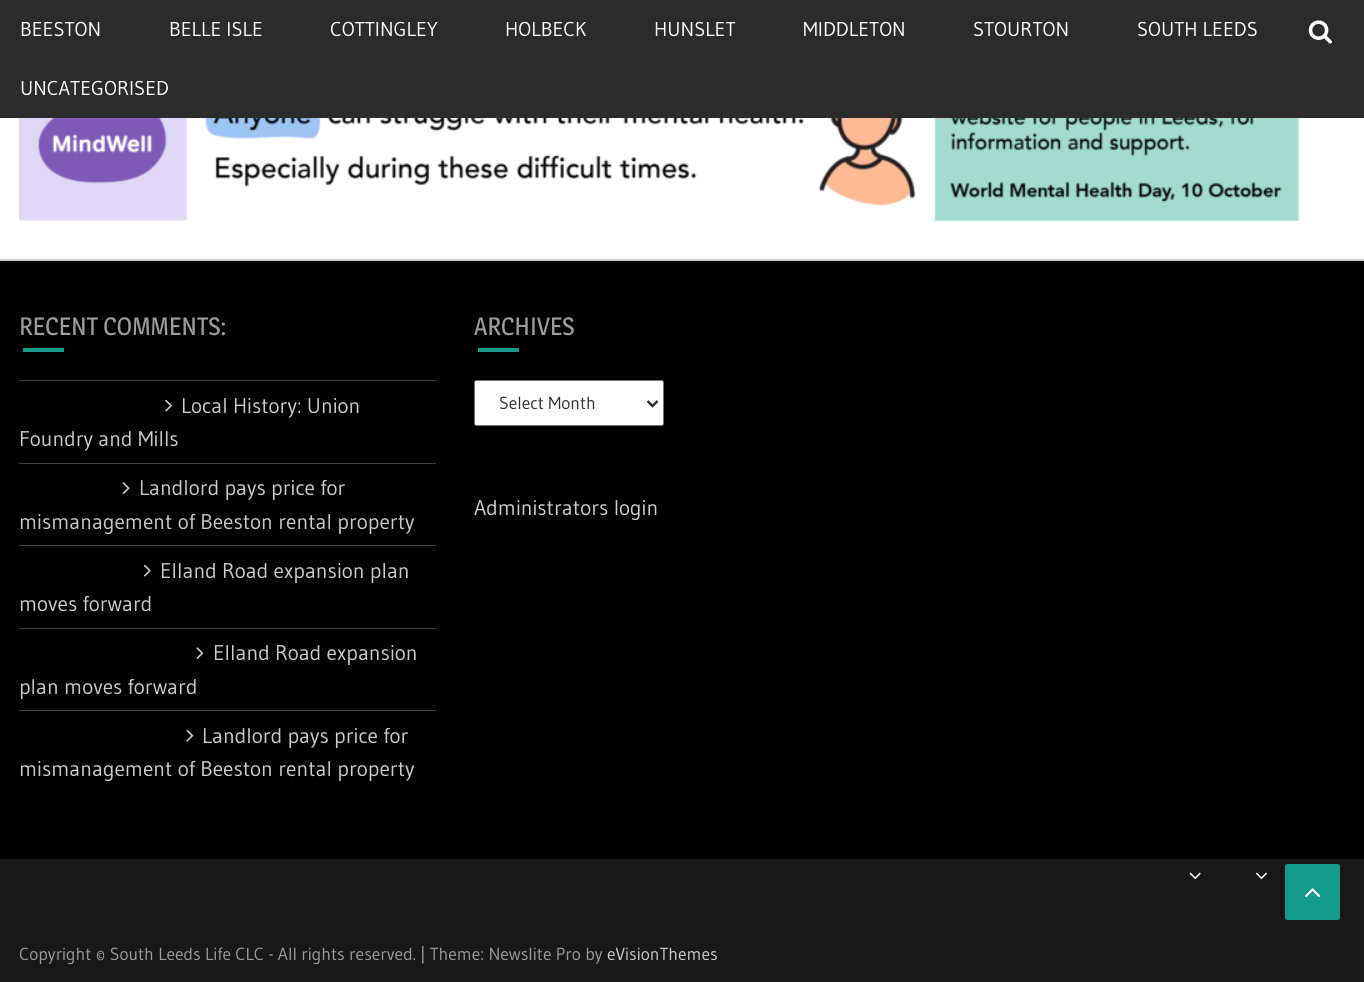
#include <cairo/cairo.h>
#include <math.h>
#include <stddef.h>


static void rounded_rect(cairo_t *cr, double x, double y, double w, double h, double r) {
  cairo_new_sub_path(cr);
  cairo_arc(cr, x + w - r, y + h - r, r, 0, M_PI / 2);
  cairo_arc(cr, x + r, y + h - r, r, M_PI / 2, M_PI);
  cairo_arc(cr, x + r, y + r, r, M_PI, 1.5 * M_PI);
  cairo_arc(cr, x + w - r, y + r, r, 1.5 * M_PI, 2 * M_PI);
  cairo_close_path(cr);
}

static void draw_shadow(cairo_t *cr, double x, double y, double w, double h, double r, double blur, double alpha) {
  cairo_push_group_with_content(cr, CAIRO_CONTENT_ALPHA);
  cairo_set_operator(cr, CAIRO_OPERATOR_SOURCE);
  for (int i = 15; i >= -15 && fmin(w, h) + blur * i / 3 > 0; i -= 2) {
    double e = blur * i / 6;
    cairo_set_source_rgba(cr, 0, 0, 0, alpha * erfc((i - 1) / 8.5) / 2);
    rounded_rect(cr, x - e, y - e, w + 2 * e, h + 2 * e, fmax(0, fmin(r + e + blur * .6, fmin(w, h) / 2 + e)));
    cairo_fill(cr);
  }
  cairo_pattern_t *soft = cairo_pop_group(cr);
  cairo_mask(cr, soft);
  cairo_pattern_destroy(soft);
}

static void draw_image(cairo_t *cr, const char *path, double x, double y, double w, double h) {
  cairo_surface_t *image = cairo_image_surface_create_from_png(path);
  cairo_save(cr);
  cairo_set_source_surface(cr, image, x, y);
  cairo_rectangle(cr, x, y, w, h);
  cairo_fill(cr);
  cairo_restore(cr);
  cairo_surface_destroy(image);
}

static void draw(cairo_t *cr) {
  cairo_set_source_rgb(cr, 1, 1, 1);
  cairo_paint(cr);
  cairo_set_source_rgb(cr, 43 / 255.0, 43 / 255.0, 43 / 255.0);
  cairo_rectangle(cr, 0, 0, 1364, 118);
  cairo_fill(cr);
  draw_image(cr, "images/1.png", 1308, 20, 24, 24);
  draw_image(cr, "images/2.png", 19, 118, 1280, 103);
  cairo_set_source_rgb(cr, 88 / 255.0, 88 / 255.0, 88 / 255.0);
  draw_shadow(cr, 0, 261, 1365, 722, 0, 2, 1);
  cairo_set_source_rgb(cr, 0, 0, 0);
  cairo_rectangle(cr, 0, 261, 1364, 598);
  cairo_fill(cr);
  cairo_set_source_rgb(cr, 21 / 255.0, 155 / 255.0, 137 / 255.0);
  cairo_rectangle(cr, 23, 348, 41, 4);
  cairo_fill(cr);
  cairo_set_source_rgb(cr, 66 / 255.0, 66 / 255.0, 66 / 255.0);
  cairo_rectangle(cr, 19, 380, 417, 1);
  cairo_fill(cr);
  draw_image(cr, "images/3.png", 165, 399, 7, 13);
  cairo_rectangle(cr, 19, 463, 417, 1);
  cairo_fill(cr);
  draw_image(cr, "images/4.png", 122, 482, 8, 12);
  cairo_rectangle(cr, 19, 545, 417, 1);
  cairo_fill(cr);
  draw_image(cr, "images/5.png", 144, 564, 7, 13);
  cairo_rectangle(cr, 19, 628, 417, 1);
  cairo_fill(cr);
  draw_image(cr, "images/6.png", 196, 647, 8, 12);
  cairo_rectangle(cr, 19, 710, 417, 1);
  cairo_fill(cr);
  draw_image(cr, "images/7.png", 186, 729, 8, 13);
  cairo_set_source_rgb(cr, 21 / 255.0, 155 / 255.0, 137 / 255.0);
  cairo_rectangle(cr, 478, 348, 41, 4);
  cairo_fill(cr);
  cairo_set_source_rgb(cr, 1, 1, 1);
  rounded_rect(cr, 474.5, 380.5, 189, 45, 2);
  cairo_fill_preserve(cr);
  cairo_set_source_rgb(cr, 118 / 255.0, 118 / 255.0, 118 / 255.0);
  cairo_set_line_width(cr, 1);
  cairo_stroke(cr);
  cairo_new_path(cr);
  cairo_move_to(cr, 647.5, 401);
  cairo_line_to(cr, 652.5, 406);
  cairo_line_to(cr, 657.5, 401);
  cairo_set_source_rgb(cr, 49 / 255.0, 49 / 255.0, 49 / 255.0);
  cairo_set_line_width(cr, 2.5);
  cairo_stroke(cr);
  cairo_set_source_rgb(cr, 24 / 255.0, 24 / 255.0, 24 / 255.0);
  cairo_rectangle(cr, 0, 859, 1364, 123);
  cairo_fill(cr);
  draw_image(cr, "images/8.png", 1189, 872, 12, 8);
  draw_image(cr, "images/9.png", 1255, 872, 12, 8);
  cairo_set_source_rgb(cr, 21 / 255.0, 155 / 255.0, 137 / 255.0);
  rounded_rect(cr, 1285, 864, 55, 56, 2.5);
  cairo_fill(cr);
  draw_image(cr, "images/10.png", 1305, 888, 16, 10);
  cairo_select_font_face(cr, "Gudea", CAIRO_FONT_SLANT_NORMAL, CAIRO_FONT_WEIGHT_NORMAL);
  cairo_set_font_size(cr, 20);
  cairo_set_source_rgb(cr, 1, 1, 1);
  cairo_move_to(cr, 20, 36);
  cairo_show_text(cr, "BEESTON");
  cairo_move_to(cr, 169, 36);
  cairo_show_text(cr, "BELLE ISLE");
  cairo_move_to(cr, 330, 36);
  cairo_show_text(cr, "COTTINGLEY");
  cairo_move_to(cr, 505, 36);
  cairo_show_text(cr, "HOLBECK");
  cairo_move_to(cr, 654, 36);
  cairo_show_text(cr, "HUNSLET");
  cairo_move_to(cr, 803, 36);
  cairo_show_text(cr, "MIDDLETON");
  cairo_move_to(cr, 973, 36);
  cairo_show_text(cr, "STOURTON");
  cairo_move_to(cr, 1137, 36);
  cairo_show_text(cr, "SOUTH LEEDS");
  cairo_move_to(cr, 20, 95);
  cairo_show_text(cr, "UNCATEGORISED");
  cairo_select_font_face(cr, "Magra", CAIRO_FONT_SLANT_NORMAL, CAIRO_FONT_WEIGHT_NORMAL);
  cairo_set_font_size(cr, 25);
  cairo_set_source_rgb(cr, 156 / 255.0, 156 / 255.0, 156 / 255.0);
  cairo_move_to(cr, 19, 335);
  cairo_show_text(cr, "RECENT COMMENTS:");
  cairo_select_font_face(cr, "Gudea", CAIRO_FONT_SLANT_NORMAL, CAIRO_FONT_WEIGHT_NORMAL);
  cairo_set_font_size(cr, 21.25);
  cairo_set_source_rgb(cr, 204 / 255.0, 204 / 255.0, 204 / 255.0);
  cairo_move_to(cr, 181, 413);
  cairo_show_text(cr, "Local History: Union");
  cairo_move_to(cr, 19, 446);
  cairo_show_text(cr, "Foundry and Mills");
  cairo_move_to(cr, 139, 495);
  cairo_show_text(cr, "Landlord pays price for");
  cairo_move_to(cr, 19, 529);
  cairo_show_text(cr, "mismanagement of Beeston rental property");
  cairo_move_to(cr, 160, 578);
  cairo_show_text(cr, "Elland Road expansion plan");
  cairo_move_to(cr, 19, 611);
  cairo_show_text(cr, "moves forward");
  cairo_move_to(cr, 213, 660);
  cairo_show_text(cr, "Elland Road expansion");
  cairo_move_to(cr, 19, 694);
  cairo_show_text(cr, "plan moves forward");
  cairo_move_to(cr, 202, 743);
  cairo_show_text(cr, "Landlord pays price for");
  cairo_move_to(cr, 19, 776);
  cairo_show_text(cr, "mismanagement of Beeston rental property");
  cairo_select_font_face(cr, "Magra", CAIRO_FONT_SLANT_NORMAL, CAIRO_FONT_WEIGHT_NORMAL);
  cairo_set_font_size(cr, 25);
  cairo_set_source_rgb(cr, 156 / 255.0, 156 / 255.0, 156 / 255.0);
  cairo_move_to(cr, 474, 335);
  cairo_show_text(cr, "ARCHIVES");
  cairo_select_font_face(cr, "Gudea", CAIRO_FONT_SLANT_NORMAL, CAIRO_FONT_WEIGHT_NORMAL);
  cairo_set_font_size(cr, 17.5);
  cairo_set_source_rgb(cr, 49 / 255.0, 49 / 255.0, 49 / 255.0);
  cairo_move_to(cr, 499, 409);
  cairo_show_text(cr, "Select Month");
  cairo_set_font_size(cr, 21.25);
  cairo_set_source_rgb(cr, 204 / 255.0, 204 / 255.0, 204 / 255.0);
  cairo_move_to(cr, 474, 515);
  cairo_show_text(cr, "Administrators login");
  cairo_set_font_size(cr, 17.5);
  cairo_set_source_rgb(cr, 156 / 255.0, 156 / 255.0, 156 / 255.0);
  cairo_move_to(cr, 19, 960);
  cairo_show_text(cr, "Copyright © South Leeds Life CLC - All rights reserved. | Theme: Newslite Pro by");
  cairo_set_source_rgb(cr, 204 / 255.0, 204 / 255.0, 204 / 255.0);
  cairo_move_to(cr, 607, 960);
  cairo_show_text(cr, "eVisionThemes");
}

int main(void) {
  cairo_surface_t *surface = cairo_image_surface_create(CAIRO_FORMAT_RGB24, 1364, 982);
  cairo_t *cr = cairo_create(surface);
  cairo_font_options_t *options = cairo_font_options_create();
  cairo_font_options_set_hint_metrics(options, CAIRO_HINT_METRICS_OFF);
  cairo_font_options_set_hint_style(options, CAIRO_HINT_STYLE_NONE);
  cairo_set_font_options(cr, options);
  cairo_set_miter_limit(cr, 4);
  draw(cr);
  cairo_surface_write_to_png(surface, "out.png");
  cairo_font_options_destroy(options);
  cairo_destroy(cr);
  cairo_surface_destroy(surface);
  return 0;
}
